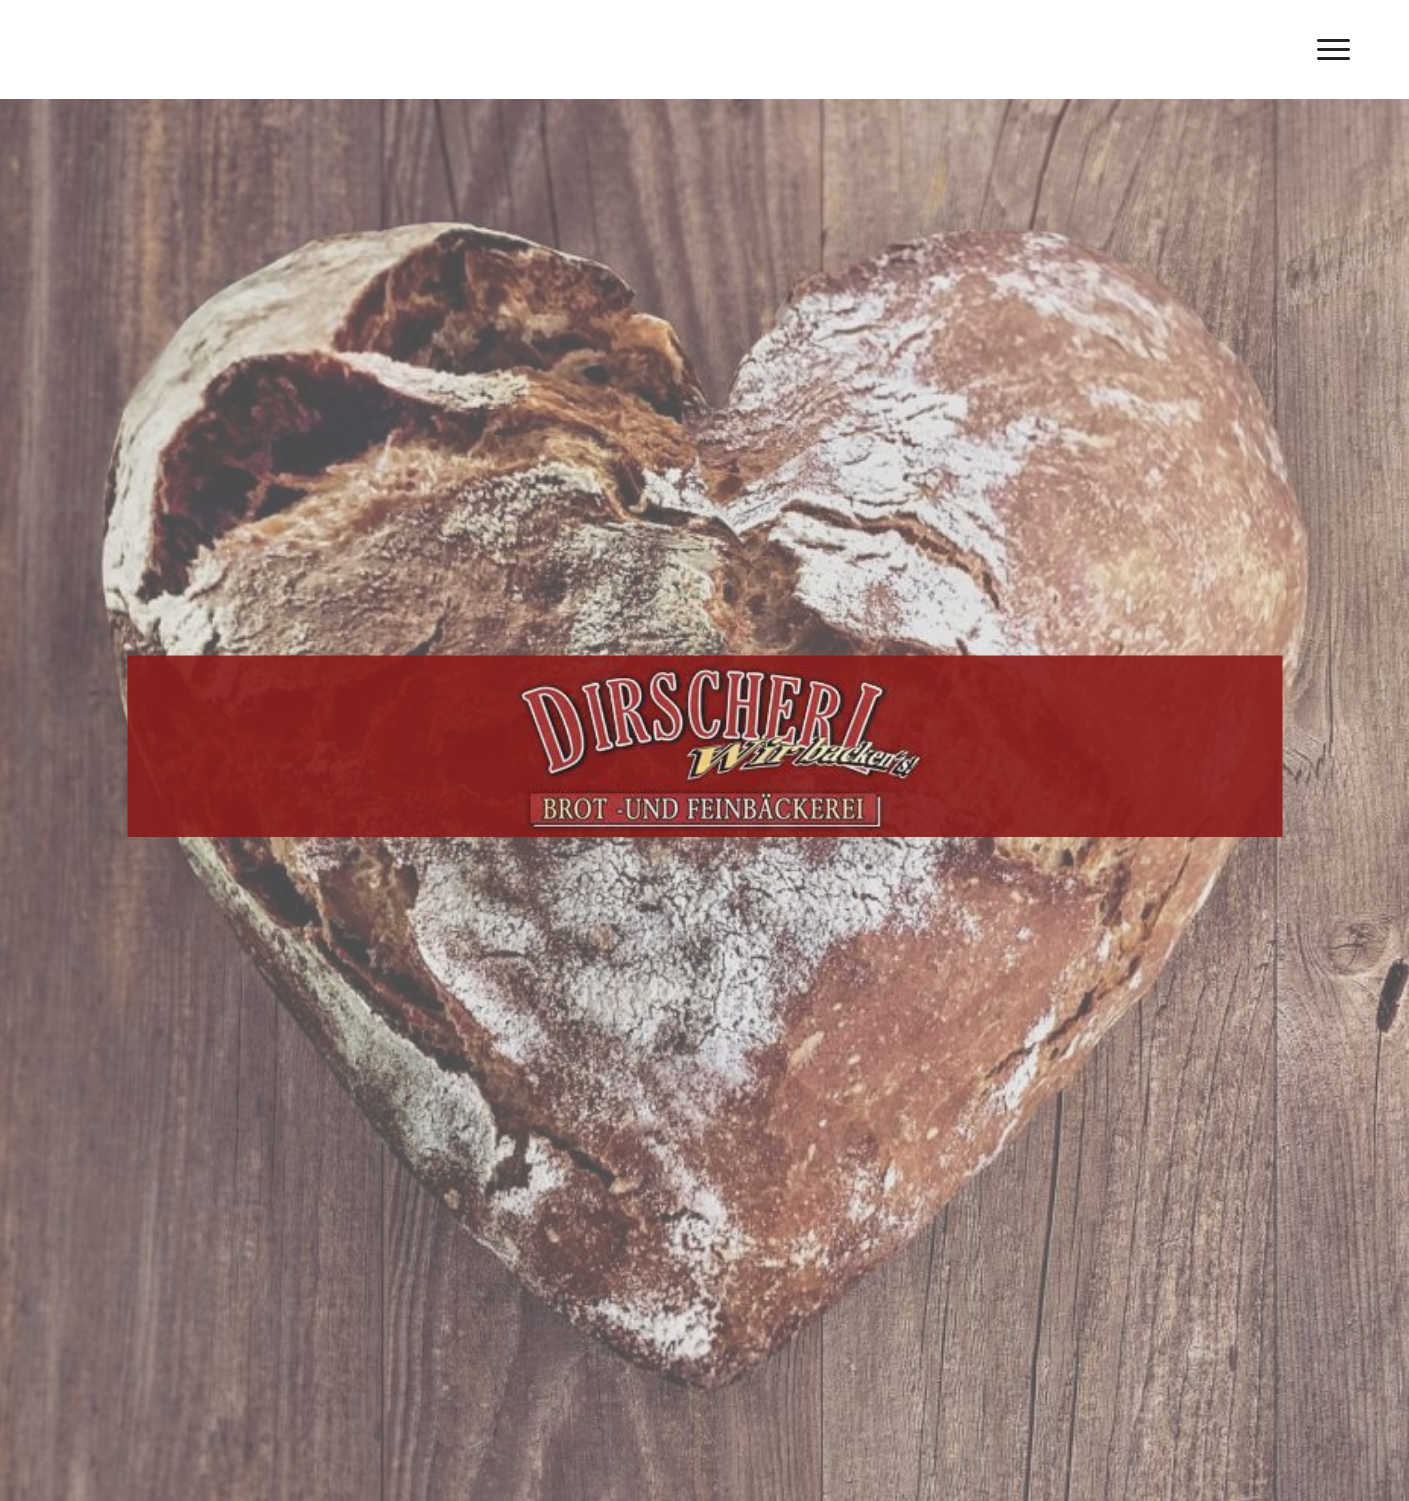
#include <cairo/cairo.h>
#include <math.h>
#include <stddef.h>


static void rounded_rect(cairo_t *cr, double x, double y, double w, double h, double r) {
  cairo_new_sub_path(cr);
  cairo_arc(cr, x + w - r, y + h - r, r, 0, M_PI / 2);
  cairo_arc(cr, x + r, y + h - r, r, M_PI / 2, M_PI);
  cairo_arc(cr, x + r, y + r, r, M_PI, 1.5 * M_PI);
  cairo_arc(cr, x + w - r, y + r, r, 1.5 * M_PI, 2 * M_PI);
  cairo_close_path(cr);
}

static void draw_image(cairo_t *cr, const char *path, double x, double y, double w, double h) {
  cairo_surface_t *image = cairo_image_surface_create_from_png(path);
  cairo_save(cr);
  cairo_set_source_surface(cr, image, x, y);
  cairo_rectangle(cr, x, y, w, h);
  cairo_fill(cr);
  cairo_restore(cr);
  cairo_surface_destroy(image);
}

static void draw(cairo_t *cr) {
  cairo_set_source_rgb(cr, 1, 1, 1);
  cairo_paint(cr);
  cairo_set_source_rgb(cr, 35 / 255.0, 35 / 255.0, 35 / 255.0);
  rounded_rect(cr, 1317, 39, 33, 3, 1.5);
  cairo_fill(cr);
  rounded_rect(cr, 1317, 48, 33, 3, 1.5);
  cairo_fill(cr);
  rounded_rect(cr, 1317, 57, 33, 3, 1.5);
  cairo_fill(cr);
  draw_image(cr, "images/1.png", 0, 99, 1409, 1402);
  draw_image(cr, "images/2.png", 127, 655, 1156, 182);
}

int main(void) {
  cairo_surface_t *surface = cairo_image_surface_create(CAIRO_FORMAT_RGB24, 1409, 1501);
  cairo_t *cr = cairo_create(surface);
  cairo_font_options_t *options = cairo_font_options_create();
  cairo_font_options_set_hint_metrics(options, CAIRO_HINT_METRICS_OFF);
  cairo_font_options_set_hint_style(options, CAIRO_HINT_STYLE_NONE);
  cairo_set_font_options(cr, options);
  cairo_set_miter_limit(cr, 4);
  draw(cr);
  cairo_surface_write_to_png(surface, "out.png");
  cairo_font_options_destroy(options);
  cairo_destroy(cr);
  cairo_surface_destroy(surface);
  return 0;
}
